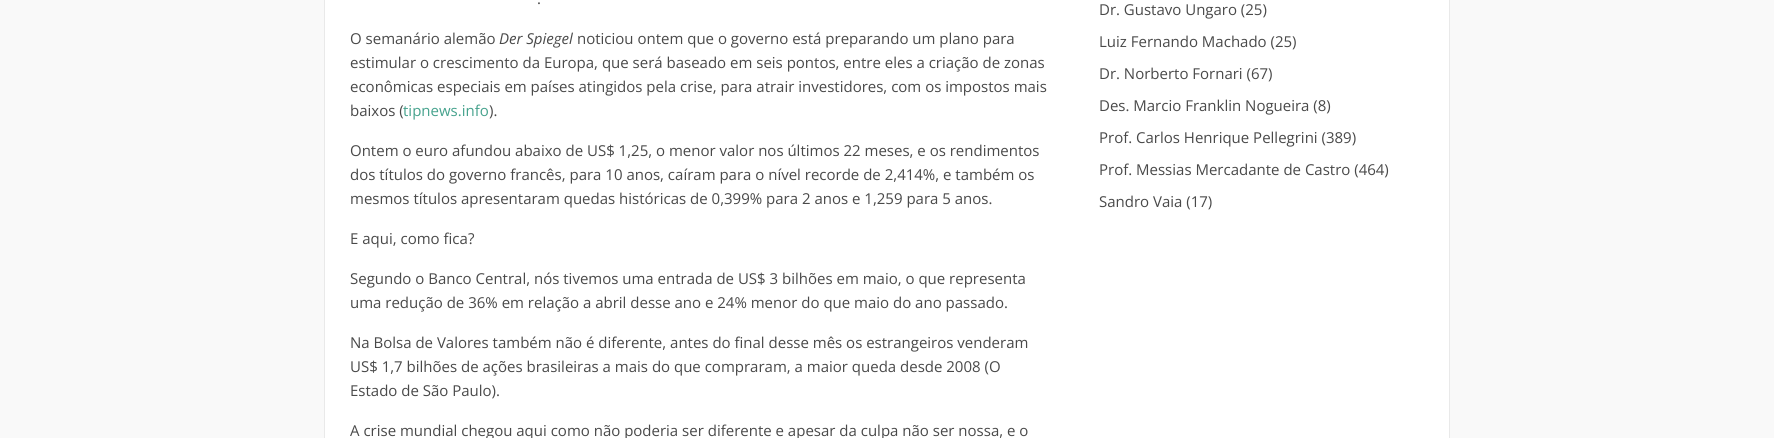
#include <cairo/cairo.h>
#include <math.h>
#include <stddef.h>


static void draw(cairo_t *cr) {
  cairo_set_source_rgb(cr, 249 / 255.0, 249 / 255.0, 249 / 255.0);
  cairo_paint(cr);
  cairo_set_source_rgb(cr, 1, 1, 1);
  cairo_rectangle(cr, 324.5, -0.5, 1125, 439);
  cairo_fill_preserve(cr);
  cairo_set_source_rgb(cr, 233 / 255.0, 233 / 255.0, 233 / 255.0);
  cairo_set_line_width(cr, 1);
  cairo_stroke(cr);
  cairo_select_font_face(cr, "Open Sans", CAIRO_FONT_SLANT_NORMAL, CAIRO_FONT_WEIGHT_NORMAL);
  cairo_set_font_size(cr, 15);
  cairo_set_source_rgb(cr, 73 / 255.0, 73 / 255.0, 73 / 255.0);
  cairo_move_to(cr, 537, 4);
  cairo_show_text(cr, ".");
  cairo_move_to(cr, 350, 44);
  cairo_show_text(cr, "O semanário alemão");
  cairo_select_font_face(cr, "Open Sans", CAIRO_FONT_SLANT_ITALIC, CAIRO_FONT_WEIGHT_NORMAL);
  cairo_move_to(cr, 499, 44);
  cairo_show_text(cr, "Der Spiegel");
  cairo_select_font_face(cr, "Open Sans", CAIRO_FONT_SLANT_NORMAL, CAIRO_FONT_WEIGHT_NORMAL);
  cairo_move_to(cr, 577, 44);
  cairo_show_text(cr, "noticiou ontem que o governo está preparando um plano para");
  cairo_move_to(cr, 350, 68);
  cairo_show_text(cr, "estimular o crescimento da Europa, que será baseado em seis pontos, entre eles a criação de zonas");
  cairo_move_to(cr, 350, 92);
  cairo_show_text(cr, "econômicas especiais em países atingidos pela crise, para atrair investidores, com os impostos mais");
  cairo_move_to(cr, 350, 116);
  cairo_show_text(cr, "baixos (");
  cairo_set_source_rgb(cr, 70 / 255.0, 162 / 255.0, 141 / 255.0);
  cairo_move_to(cr, 403, 116);
  cairo_show_text(cr, "tipnews.info");
  cairo_set_source_rgb(cr, 73 / 255.0, 73 / 255.0, 73 / 255.0);
  cairo_move_to(cr, 489, 116);
  cairo_show_text(cr, ").");
  cairo_move_to(cr, 350, 156);
  cairo_show_text(cr, "Ontem o euro afundou abaixo de US$ 1,25, o menor valor nos últimos 22 meses, e os rendimentos");
  cairo_move_to(cr, 350, 180);
  cairo_show_text(cr, "dos títulos do governo francês, para 10 anos, caíram para o nível recorde de 2,414%, e também os");
  cairo_move_to(cr, 350, 204);
  cairo_show_text(cr, "mesmos títulos apresentaram quedas históricas de 0,399% para 2 anos e 1,259 para 5 anos.");
  cairo_move_to(cr, 350, 244);
  cairo_show_text(cr, "E aqui, como fica?");
  cairo_move_to(cr, 350, 284);
  cairo_show_text(cr, "Segundo o Banco Central, nós tivemos uma entrada de US$ 3 bilhões em maio, o que representa");
  cairo_move_to(cr, 350, 308);
  cairo_show_text(cr, "uma redução de 36% em relação a abril desse ano e 24% menor do que maio do ano passado.");
  cairo_move_to(cr, 350, 348);
  cairo_show_text(cr, "Na Bolsa de Valores também não é diferente, antes do final desse mês os estrangeiros venderam");
  cairo_move_to(cr, 350, 372);
  cairo_show_text(cr, "US$ 1,7 bilhões de ações brasileiras a mais do que compraram, a maior queda desde 2008 (O");
  cairo_move_to(cr, 350, 396);
  cairo_show_text(cr, "Estado de São Paulo).");
  cairo_move_to(cr, 350, 436);
  cairo_show_text(cr, "A crise mundial chegou aqui como não poderia ser diferente e apesar da culpa não ser nossa, e o");
  cairo_move_to(cr, 1099, 15);
  cairo_show_text(cr, "Dr. Gustavo Ungaro (25)");
  cairo_move_to(cr, 1099, 47);
  cairo_show_text(cr, "Luiz Fernando Machado (25)");
  cairo_move_to(cr, 1099, 79);
  cairo_show_text(cr, "Dr. Norberto Fornari (67)");
  cairo_move_to(cr, 1099, 111);
  cairo_show_text(cr, "Des. Marcio Franklin Nogueira (8)");
  cairo_move_to(cr, 1099, 143);
  cairo_show_text(cr, "Prof. Carlos Henrique Pellegrini (389)");
  cairo_move_to(cr, 1099, 175);
  cairo_show_text(cr, "Prof. Messias Mercadante de Castro (464)");
  cairo_move_to(cr, 1099, 207);
  cairo_show_text(cr, "Sandro Vaia (17)");
}

int main(void) {
  cairo_surface_t *surface = cairo_image_surface_create(CAIRO_FORMAT_RGB24, 1774, 438);
  cairo_t *cr = cairo_create(surface);
  cairo_font_options_t *options = cairo_font_options_create();
  cairo_font_options_set_hint_metrics(options, CAIRO_HINT_METRICS_OFF);
  cairo_font_options_set_hint_style(options, CAIRO_HINT_STYLE_NONE);
  cairo_set_font_options(cr, options);
  cairo_set_miter_limit(cr, 4);
  draw(cr);
  cairo_surface_write_to_png(surface, "out.png");
  cairo_font_options_destroy(options);
  cairo_destroy(cr);
  cairo_surface_destroy(surface);
  return 0;
}
